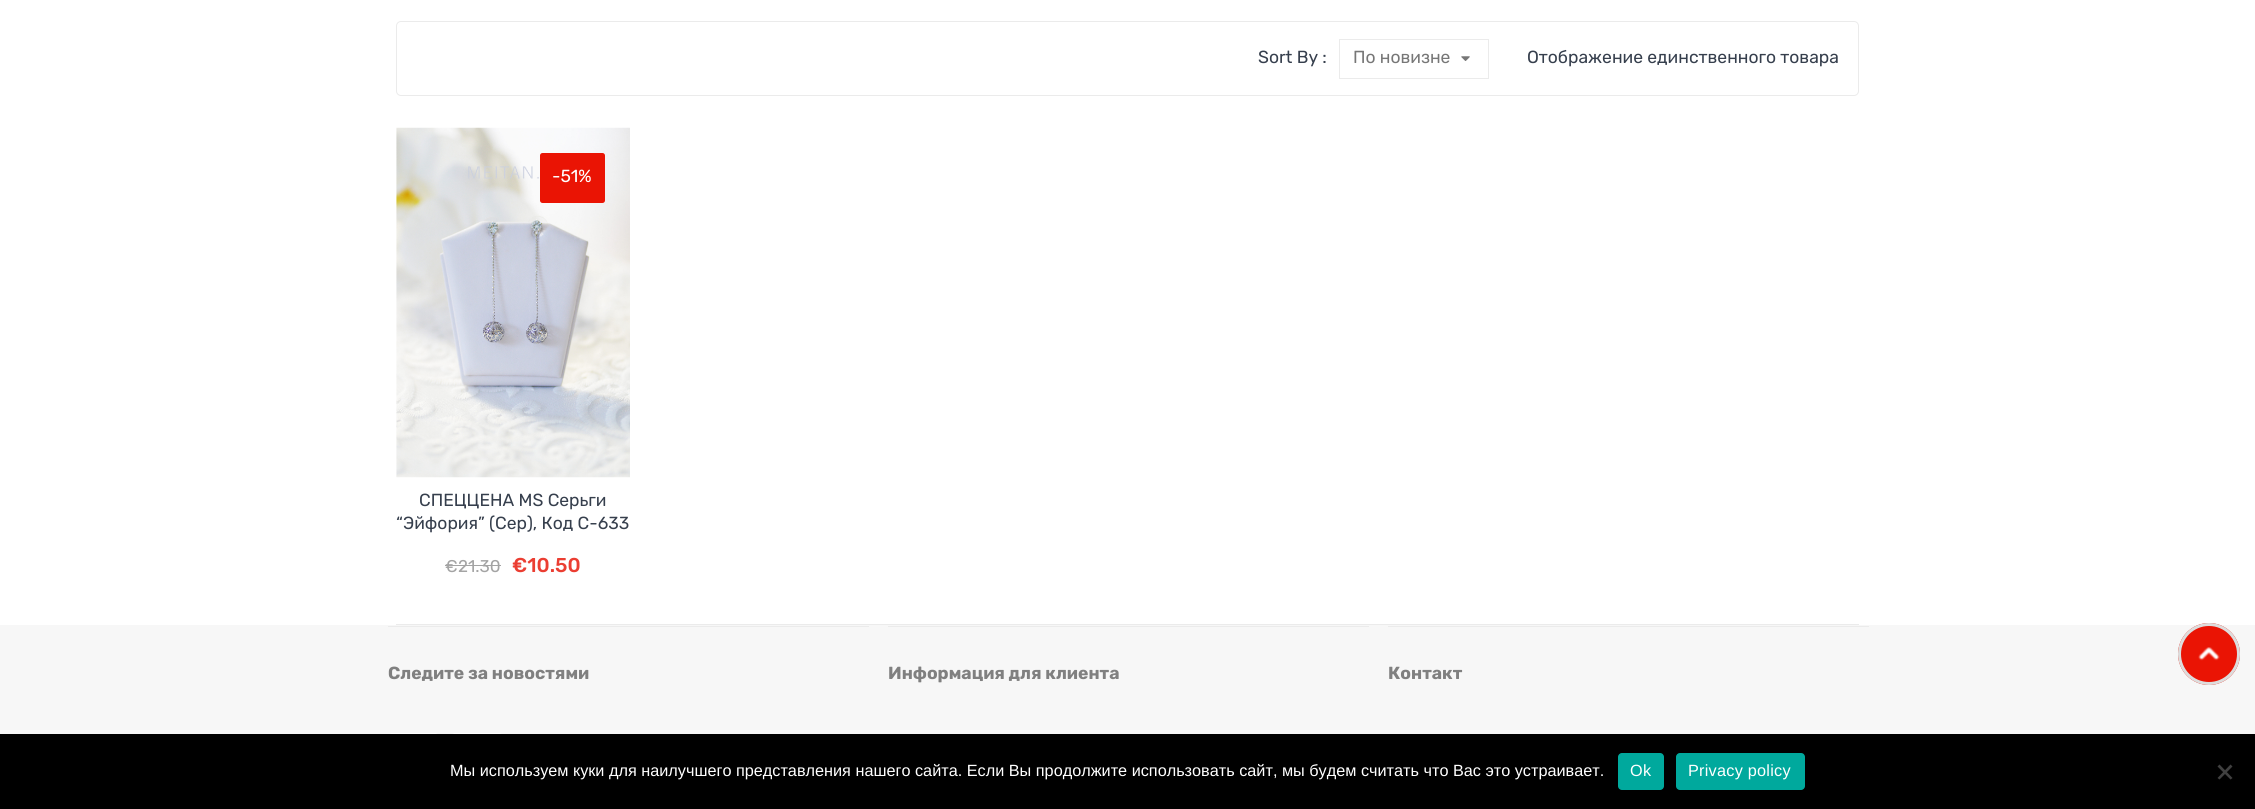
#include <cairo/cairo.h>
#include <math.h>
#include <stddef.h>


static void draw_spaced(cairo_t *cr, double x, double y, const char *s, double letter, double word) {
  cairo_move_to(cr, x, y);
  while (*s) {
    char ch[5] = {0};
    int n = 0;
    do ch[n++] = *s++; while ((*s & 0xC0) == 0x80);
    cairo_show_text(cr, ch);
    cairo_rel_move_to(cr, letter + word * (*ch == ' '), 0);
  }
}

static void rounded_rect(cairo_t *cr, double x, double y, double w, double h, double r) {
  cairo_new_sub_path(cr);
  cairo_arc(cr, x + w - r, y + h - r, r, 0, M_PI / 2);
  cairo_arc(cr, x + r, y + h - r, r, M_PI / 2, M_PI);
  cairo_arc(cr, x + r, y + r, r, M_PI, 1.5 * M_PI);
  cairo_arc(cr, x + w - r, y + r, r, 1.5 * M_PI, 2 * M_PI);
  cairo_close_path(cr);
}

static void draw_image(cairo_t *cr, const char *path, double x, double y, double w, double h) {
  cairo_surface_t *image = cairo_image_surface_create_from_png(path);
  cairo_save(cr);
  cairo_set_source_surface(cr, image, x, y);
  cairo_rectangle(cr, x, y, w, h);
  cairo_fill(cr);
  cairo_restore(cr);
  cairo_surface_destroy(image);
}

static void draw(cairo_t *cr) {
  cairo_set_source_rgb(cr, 1, 1, 1);
  cairo_paint(cr);
  rounded_rect(cr, 396.5, 21.5, 1462, 74, 4.5);
  cairo_set_source_rgb(cr, 235 / 255.0, 235 / 255.0, 235 / 255.0);
  cairo_set_line_width(cr, 1);
  cairo_stroke(cr);
  cairo_rectangle(cr, 1339.5, 39.5, 149, 39);
  cairo_stroke(cr);
  draw_image(cr, "images/1.png", 1461, 56, 9, 5);
  draw_image(cr, "images/2.png", 396, 127, 234, 351);
  cairo_set_source_rgb(cr, 234 / 255.0, 20 / 255.0, 4 / 255.0);
  rounded_rect(cr, 540, 153, 65, 50, 2.5);
  cairo_fill(cr);
  cairo_set_source_rgb(cr, 164 / 255.0, 164 / 255.0, 164 / 255.0);
  cairo_rectangle(cr, 445, 565, 14, 1);
  cairo_fill(cr);
  cairo_rectangle(cr, 459, 565, 42, 1);
  cairo_fill(cr);
  cairo_set_source_rgb(cr, 235 / 255.0, 235 / 255.0, 235 / 255.0);
  cairo_rectangle(cr, 396, 624, 1463, 1);
  cairo_fill(cr);
  cairo_set_source_rgb(cr, 247 / 255.0, 247 / 255.0, 247 / 255.0);
  cairo_rectangle(cr, 0, 625, 2255, 109);
  cairo_fill(cr);
  cairo_set_source_rgb(cr, 235 / 255.0, 235 / 255.0, 235 / 255.0);
  cairo_rectangle(cr, 388, 626, 481, 1);
  cairo_fill(cr);
  cairo_set_source_rgb(cr, 1, 1, 1);
  rounded_rect(cr, 388, 733, 51, 51, 4);
  cairo_fill(cr);
  rounded_rect(cr, 451, 733, 52, 51, 4);
  cairo_fill(cr);
  cairo_set_source_rgb(cr, 235 / 255.0, 235 / 255.0, 235 / 255.0);
  cairo_rectangle(cr, 888, 626, 481, 1);
  cairo_fill(cr);
  cairo_rectangle(cr, 1388, 626, 481, 1);
  cairo_fill(cr);
  cairo_set_source_rgb(cr, 234 / 255.0, 20 / 255.0, 4 / 255.0);
  cairo_arc(cr, 2209, 654, 31, 0, 2 * M_PI);
  cairo_fill(cr);
  draw_image(cr, "images/3.png", 2198, 647, 22, 14);
  cairo_arc(cr, 2209, 654, 29.5, 0, 2 * M_PI);
  cairo_set_source_rgb(cr, 221 / 255.0, 221 / 255.0, 221 / 255.0);
  cairo_set_line_width(cr, 3);
  cairo_stroke(cr);
  cairo_set_source_rgb(cr, 0, 0, 0);
  cairo_rectangle(cr, 0, 734, 2255, 75);
  cairo_fill(cr);
  cairo_set_source_rgb(cr, 0, 169 / 255.0, 157 / 255.0);
  rounded_rect(cr, 1618, 753, 46, 37, 4);
  cairo_fill(cr);
  rounded_rect(cr, 1676, 753, 129, 37, 4);
  cairo_fill(cr);
  cairo_set_source_rgb(cr, 64 / 255.0, 64 / 255.0, 64 / 255.0);
  cairo_new_path(cr);
  cairo_move_to(cr, 2230.5, 764.5);
  cairo_line_to(cr, 2232.5, 766.5);
  cairo_line_to(cr, 2219.5, 779.5);
  cairo_line_to(cr, 2217.5, 778);
  cairo_close_path(cr);
  cairo_fill(cr);
  cairo_new_path(cr);
  cairo_move_to(cr, 2217.5, 766.5);
  cairo_line_to(cr, 2219.5, 764.5);
  cairo_line_to(cr, 2232.5, 778);
  cairo_line_to(cr, 2230.5, 779.5);
  cairo_close_path(cr);
  cairo_fill(cr);
  cairo_select_font_face(cr, "Rubik", CAIRO_FONT_SLANT_NORMAL, CAIRO_FONT_WEIGHT_NORMAL);
  cairo_set_font_size(cr, 17.5);
  cairo_set_source_rgb(cr, 54 / 255.0, 63 / 255.0, 77 / 255.0);
  cairo_move_to(cr, 1258, 63);
  cairo_show_text(cr, "Sort By :");
  cairo_set_source_rgb(cr, 119 / 255.0, 119 / 255.0, 119 / 255.0);
  cairo_move_to(cr, 1353, 63);
  cairo_show_text(cr, "По новизне");
  cairo_set_source_rgb(cr, 54 / 255.0, 63 / 255.0, 77 / 255.0);
  cairo_move_to(cr, 1527, 63);
  cairo_show_text(cr, "Отображение единственного товара");
  cairo_set_source_rgb(cr, 1, 1, 1);
  cairo_move_to(cr, 552, 182);
  cairo_show_text(cr, "-51%");
  cairo_set_source_rgb(cr, 54 / 255.0, 63 / 255.0, 77 / 255.0);
  cairo_move_to(cr, 419, 506);
  cairo_show_text(cr, "СПЕЦЦЕНА MS Серьги");
  cairo_move_to(cr, 396, 529);
  cairo_show_text(cr, "“Эйфория” (Сер), Код C-633");
  cairo_set_font_size(cr, 17);
  cairo_set_source_rgb(cr, 164 / 255.0, 164 / 255.0, 164 / 255.0);
  cairo_move_to(cr, 445, 572);
  cairo_show_text(cr, "€");
  cairo_move_to(cr, 458, 572);
  cairo_show_text(cr, "21.30");
  cairo_select_font_face(cr, "Rubik Medium", CAIRO_FONT_SLANT_NORMAL, CAIRO_FONT_WEIGHT_NORMAL);
  cairo_set_font_size(cr, 20);
  cairo_set_source_rgb(cr, 235 / 255.0, 62 / 255.0, 50 / 255.0);
  cairo_move_to(cr, 512, 572);
  cairo_show_text(cr, "€10.50");
  cairo_select_font_face(cr, "Rubik", CAIRO_FONT_SLANT_NORMAL, CAIRO_FONT_WEIGHT_BOLD);
  cairo_set_font_size(cr, 17.5);
  cairo_set_source_rgb(cr, 128 / 255.0, 128 / 255.0, 128 / 255.0);
  cairo_move_to(cr, 388, 679);
  cairo_show_text(cr, "Следите за новостями");
  cairo_move_to(cr, 888, 679);
  cairo_show_text(cr, "Информация для клиента");
  cairo_move_to(cr, 1388, 679);
  cairo_show_text(cr, "Контакт");
  cairo_select_font_face(cr, "Liberation Sans", CAIRO_FONT_SLANT_NORMAL, CAIRO_FONT_WEIGHT_NORMAL);
  cairo_set_font_size(cr, 16.25);
  cairo_set_source_rgb(cr, 1, 1, 1);
  cairo_move_to(cr, 450, 776);
  cairo_show_text(cr, "Мы используем куки для наилучшего представления нашего сайта. Если Вы продолжите использовать сайт, мы будем считать что Вас это устраивает.");
  draw_spaced(cr, 1630, 776, "Ok", 0.25, 0);
  draw_spaced(cr, 1688, 776, "Privacy policy", 0.25, 0);
}

int main(void) {
  cairo_surface_t *surface = cairo_image_surface_create(CAIRO_FORMAT_RGB24, 2255, 809);
  cairo_t *cr = cairo_create(surface);
  cairo_font_options_t *options = cairo_font_options_create();
  cairo_font_options_set_hint_metrics(options, CAIRO_HINT_METRICS_OFF);
  cairo_font_options_set_hint_style(options, CAIRO_HINT_STYLE_NONE);
  cairo_set_font_options(cr, options);
  cairo_set_miter_limit(cr, 4);
  draw(cr);
  cairo_surface_write_to_png(surface, "out.png");
  cairo_font_options_destroy(options);
  cairo_destroy(cr);
  cairo_surface_destroy(surface);
  return 0;
}
